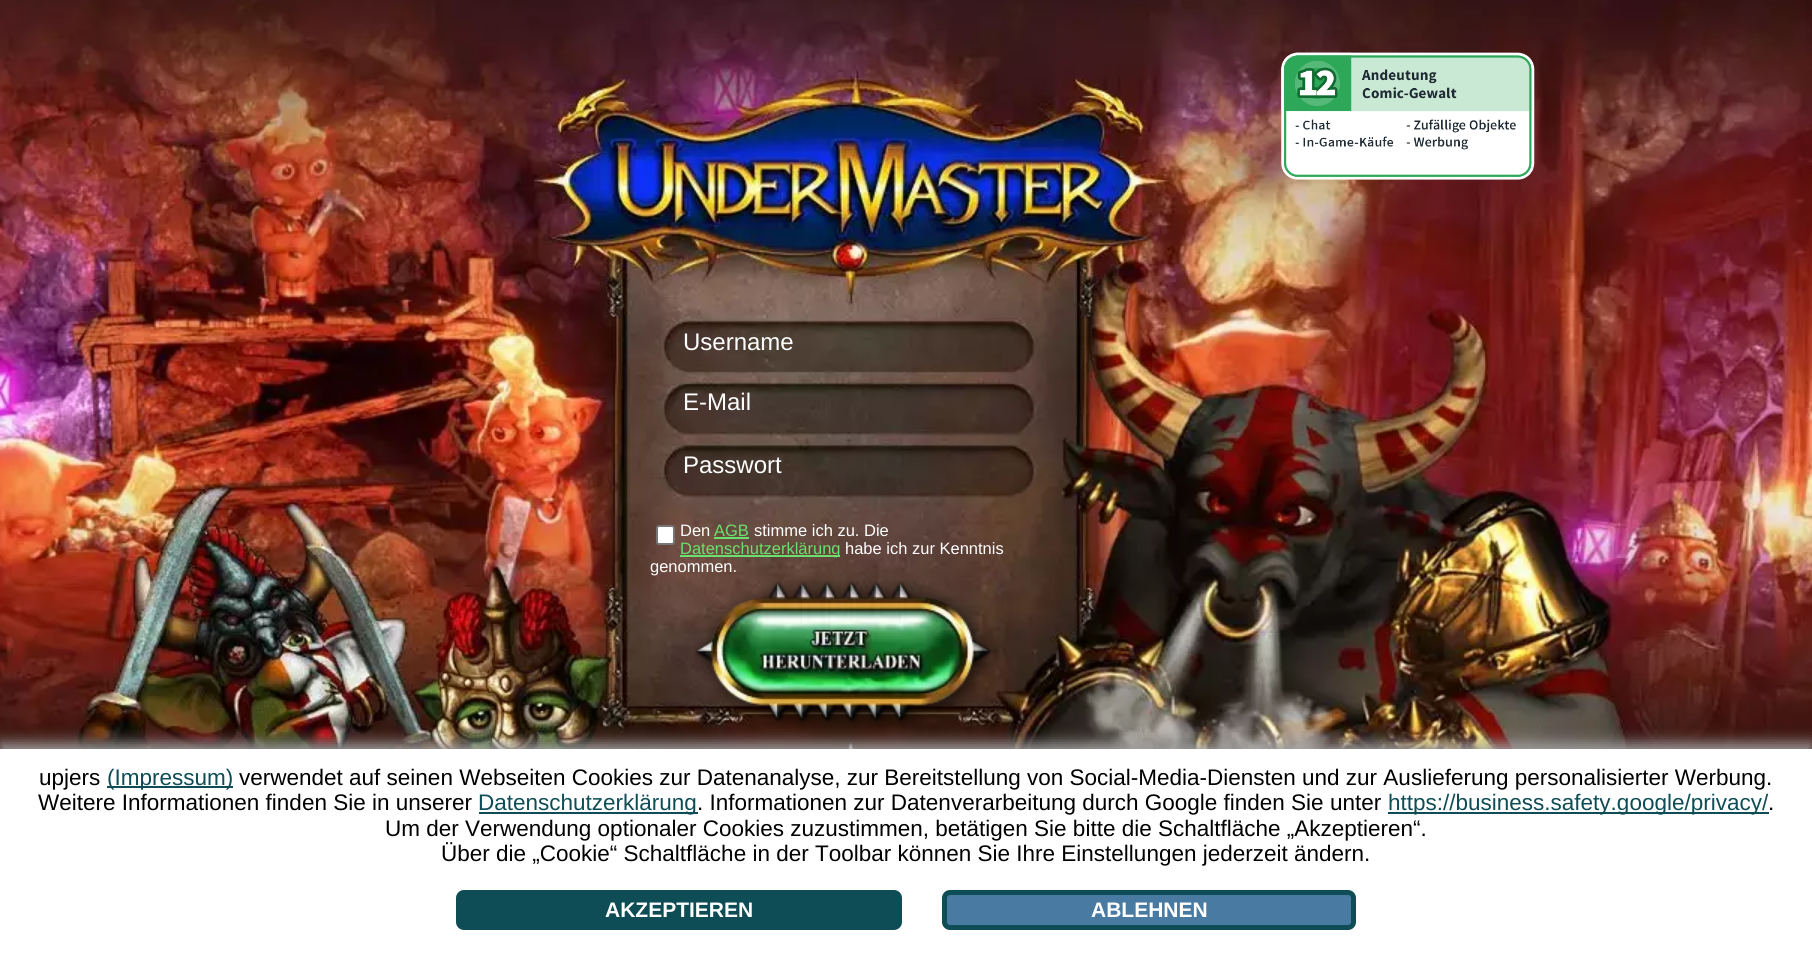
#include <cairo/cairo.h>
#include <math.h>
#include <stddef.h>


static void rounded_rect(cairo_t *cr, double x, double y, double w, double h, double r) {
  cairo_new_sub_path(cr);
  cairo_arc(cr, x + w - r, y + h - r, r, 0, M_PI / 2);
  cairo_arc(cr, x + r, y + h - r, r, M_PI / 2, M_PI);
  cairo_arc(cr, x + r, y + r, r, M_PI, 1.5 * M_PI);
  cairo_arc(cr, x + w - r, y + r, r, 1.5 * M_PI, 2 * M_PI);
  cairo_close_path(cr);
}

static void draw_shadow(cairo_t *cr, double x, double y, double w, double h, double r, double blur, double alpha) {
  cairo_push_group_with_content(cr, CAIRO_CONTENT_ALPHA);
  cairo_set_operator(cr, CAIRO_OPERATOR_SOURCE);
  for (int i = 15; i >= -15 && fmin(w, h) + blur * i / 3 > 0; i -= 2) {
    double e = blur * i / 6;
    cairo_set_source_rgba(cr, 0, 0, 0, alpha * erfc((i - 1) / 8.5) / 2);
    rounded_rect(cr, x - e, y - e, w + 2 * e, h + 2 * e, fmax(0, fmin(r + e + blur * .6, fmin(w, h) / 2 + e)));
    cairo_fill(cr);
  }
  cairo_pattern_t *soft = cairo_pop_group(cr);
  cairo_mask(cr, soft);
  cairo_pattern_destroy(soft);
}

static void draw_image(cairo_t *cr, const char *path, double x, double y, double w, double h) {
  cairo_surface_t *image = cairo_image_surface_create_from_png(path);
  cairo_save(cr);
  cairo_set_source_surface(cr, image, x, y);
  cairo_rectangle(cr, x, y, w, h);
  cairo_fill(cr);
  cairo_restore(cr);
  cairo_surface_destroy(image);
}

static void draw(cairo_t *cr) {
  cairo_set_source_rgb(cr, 1, 1, 1);
  cairo_paint(cr);
  draw_image(cr, "images/1.png", 0, 0, 1812, 749);
  draw_image(cr, "images/2.png", 1281, 52, 254, 128);
  cairo_set_source_rgb(cr, 1, 1, 1);
  rounded_rect(cr, 657, 526, 17, 18, 2);
  cairo_fill_preserve(cr);
  cairo_set_source_rgb(cr, 118 / 255.0, 118 / 255.0, 118 / 255.0);
  cairo_stroke(cr);
  cairo_set_source_rgb(cr, 108 / 255.0, 224 / 255.0, 108 / 255.0);
  cairo_rectangle(cr, 714, 537, 35, 2);
  cairo_fill(cr);
  cairo_rectangle(cr, 680, 555, 160, 2);
  cairo_fill(cr);
  draw_image(cr, "images/3.png", 694, 580, 303, 148);
  draw_image(cr, "images/4.png", 847, 742, 7, 7);
  cairo_set_source_rgb(cr, 161 / 255.0, 161 / 255.0, 161 / 255.0);
  draw_shadow(cr, 0, 743, 1812, 205, 0, 7.5, 1);
  cairo_set_source_rgb(cr, 1, 1, 1);
  cairo_rectangle(cr, 0, 749, 1812, 204);
  cairo_fill(cr);
  cairo_set_source_rgb(cr, 14 / 255.0, 77 / 255.0, 85 / 255.0);
  cairo_rectangle(cr, 107, 786, 126, 2);
  cairo_fill(cr);
  cairo_rectangle(cr, 479, 812, 219, 2);
  cairo_fill(cr);
  cairo_rectangle(cr, 1388, 812, 381, 2);
  cairo_fill(cr);
  rounded_rect(cr, 458.5, 892.5, 441, 35, 5.5);
  cairo_fill_preserve(cr);
  cairo_set_line_width(cr, 5);
  cairo_stroke(cr);
  cairo_set_source_rgb(cr, 73 / 255.0, 122 / 255.0, 162 / 255.0);
  rounded_rect(cr, 944.5, 892.5, 409, 35, 5.5);
  cairo_fill_preserve(cr);
  cairo_set_source_rgb(cr, 14 / 255.0, 77 / 255.0, 85 / 255.0);
  cairo_stroke(cr);
  cairo_select_font_face(cr, "Liberation Sans", CAIRO_FONT_SLANT_NORMAL, CAIRO_FONT_WEIGHT_NORMAL);
  cairo_set_font_size(cr, 24);
  cairo_set_source_rgb(cr, 1, 1, 1);
  cairo_move_to(cr, 683, 350);
  cairo_show_text(cr, "Username");
  cairo_move_to(cr, 683, 410);
  cairo_show_text(cr, "E-Mail");
  cairo_move_to(cr, 683, 473);
  cairo_show_text(cr, "Passwort");
  cairo_set_font_size(cr, 16.5);
  cairo_move_to(cr, 680, 536);
  cairo_show_text(cr, "Den");
  cairo_set_source_rgb(cr, 108 / 255.0, 224 / 255.0, 108 / 255.0);
  cairo_move_to(cr, 714, 536);
  cairo_show_text(cr, "AGB");
  cairo_set_source_rgb(cr, 1, 1, 1);
  cairo_move_to(cr, 754, 536);
  cairo_show_text(cr, "stimme ich zu. Die");
  cairo_set_source_rgb(cr, 108 / 255.0, 224 / 255.0, 108 / 255.0);
  cairo_move_to(cr, 680, 554);
  cairo_show_text(cr, "Datenschutzerklärung");
  cairo_set_source_rgb(cr, 1, 1, 1);
  cairo_move_to(cr, 845, 554);
  cairo_show_text(cr, "habe ich zur Kenntnis");
  cairo_move_to(cr, 650, 572);
  cairo_show_text(cr, "genommen.");
  cairo_set_font_size(cr, 22.5);
  cairo_set_source_rgb(cr, 0, 0, 0);
  cairo_move_to(cr, 39, 785);
  cairo_show_text(cr, "upjers");
  cairo_set_source_rgb(cr, 14 / 255.0, 77 / 255.0, 85 / 255.0);
  cairo_move_to(cr, 107, 785);
  cairo_show_text(cr, "(Impressum)");
  cairo_set_source_rgb(cr, 0, 0, 0);
  cairo_move_to(cr, 239, 785);
  cairo_show_text(cr, "verwendet auf seinen Webseiten Cookies zur Datenanalyse, zur Bereitstellung von Social-Media-Diensten und zur Auslieferung personalisierter Werbung.");
  cairo_move_to(cr, 38, 810);
  cairo_show_text(cr, "Weitere Informationen finden Sie in unserer");
  cairo_set_source_rgb(cr, 14 / 255.0, 77 / 255.0, 85 / 255.0);
  cairo_move_to(cr, 478, 810);
  cairo_show_text(cr, "Datenschutzerklärung");
  cairo_set_source_rgb(cr, 0, 0, 0);
  cairo_move_to(cr, 697, 810);
  cairo_show_text(cr, ". Informationen zur Datenverarbeitung durch Google finden Sie unter");
  cairo_set_source_rgb(cr, 14 / 255.0, 77 / 255.0, 85 / 255.0);
  cairo_move_to(cr, 1388, 810);
  cairo_show_text(cr, "https://business.safety.google/privacy/");
  cairo_set_source_rgb(cr, 0, 0, 0);
  cairo_move_to(cr, 1768, 810);
  cairo_show_text(cr, ".");
  cairo_move_to(cr, 385, 836);
  cairo_show_text(cr, "Um der Verwendung optionaler Cookies zuzustimmen, betätigen Sie bitte die Schaltfläche „Akzeptieren“.");
  cairo_move_to(cr, 441, 861);
  cairo_show_text(cr, "Über die „Cookie“ Schaltfläche in der Toolbar können Sie Ihre Einstellungen jederzeit ändern.");
  cairo_select_font_face(cr, "Liberation Sans", CAIRO_FONT_SLANT_NORMAL, CAIRO_FONT_WEIGHT_BOLD);
  cairo_set_font_size(cr, 21);
  cairo_set_source_rgb(cr, 1, 1, 1);
  cairo_move_to(cr, 605, 917);
  cairo_show_text(cr, "AKZEPTIEREN");
  cairo_move_to(cr, 1091, 917);
  cairo_show_text(cr, "ABLEHNEN");
}

int main(void) {
  cairo_surface_t *surface = cairo_image_surface_create(CAIRO_FORMAT_RGB24, 1812, 953);
  cairo_t *cr = cairo_create(surface);
  cairo_font_options_t *options = cairo_font_options_create();
  cairo_font_options_set_hint_metrics(options, CAIRO_HINT_METRICS_OFF);
  cairo_font_options_set_hint_style(options, CAIRO_HINT_STYLE_NONE);
  cairo_set_font_options(cr, options);
  cairo_set_miter_limit(cr, 4);
  draw(cr);
  cairo_surface_write_to_png(surface, "out.png");
  cairo_font_options_destroy(options);
  cairo_destroy(cr);
  cairo_surface_destroy(surface);
  return 0;
}
